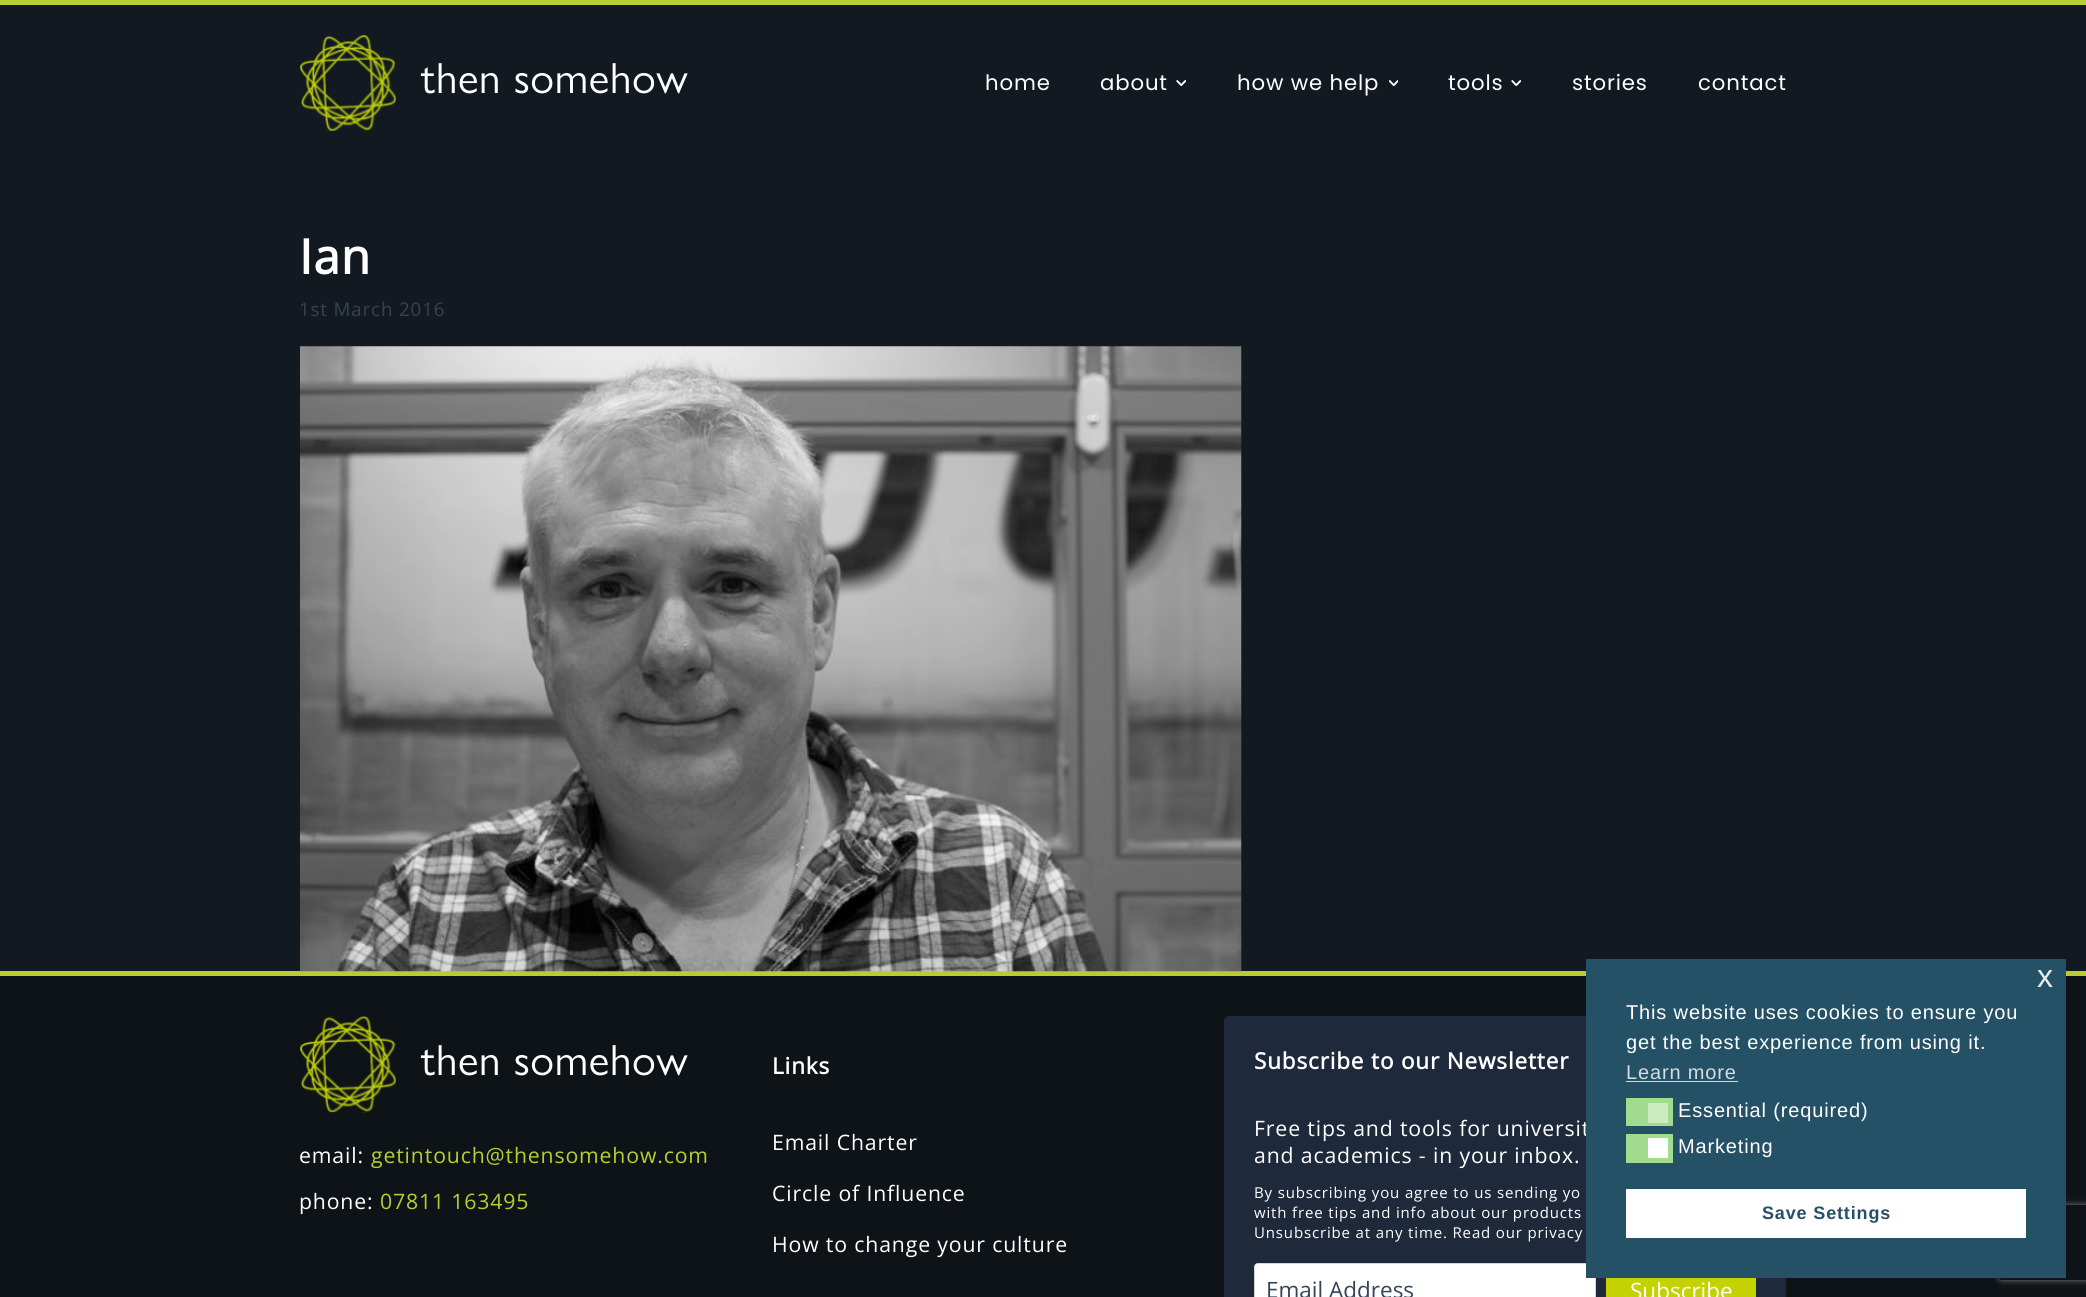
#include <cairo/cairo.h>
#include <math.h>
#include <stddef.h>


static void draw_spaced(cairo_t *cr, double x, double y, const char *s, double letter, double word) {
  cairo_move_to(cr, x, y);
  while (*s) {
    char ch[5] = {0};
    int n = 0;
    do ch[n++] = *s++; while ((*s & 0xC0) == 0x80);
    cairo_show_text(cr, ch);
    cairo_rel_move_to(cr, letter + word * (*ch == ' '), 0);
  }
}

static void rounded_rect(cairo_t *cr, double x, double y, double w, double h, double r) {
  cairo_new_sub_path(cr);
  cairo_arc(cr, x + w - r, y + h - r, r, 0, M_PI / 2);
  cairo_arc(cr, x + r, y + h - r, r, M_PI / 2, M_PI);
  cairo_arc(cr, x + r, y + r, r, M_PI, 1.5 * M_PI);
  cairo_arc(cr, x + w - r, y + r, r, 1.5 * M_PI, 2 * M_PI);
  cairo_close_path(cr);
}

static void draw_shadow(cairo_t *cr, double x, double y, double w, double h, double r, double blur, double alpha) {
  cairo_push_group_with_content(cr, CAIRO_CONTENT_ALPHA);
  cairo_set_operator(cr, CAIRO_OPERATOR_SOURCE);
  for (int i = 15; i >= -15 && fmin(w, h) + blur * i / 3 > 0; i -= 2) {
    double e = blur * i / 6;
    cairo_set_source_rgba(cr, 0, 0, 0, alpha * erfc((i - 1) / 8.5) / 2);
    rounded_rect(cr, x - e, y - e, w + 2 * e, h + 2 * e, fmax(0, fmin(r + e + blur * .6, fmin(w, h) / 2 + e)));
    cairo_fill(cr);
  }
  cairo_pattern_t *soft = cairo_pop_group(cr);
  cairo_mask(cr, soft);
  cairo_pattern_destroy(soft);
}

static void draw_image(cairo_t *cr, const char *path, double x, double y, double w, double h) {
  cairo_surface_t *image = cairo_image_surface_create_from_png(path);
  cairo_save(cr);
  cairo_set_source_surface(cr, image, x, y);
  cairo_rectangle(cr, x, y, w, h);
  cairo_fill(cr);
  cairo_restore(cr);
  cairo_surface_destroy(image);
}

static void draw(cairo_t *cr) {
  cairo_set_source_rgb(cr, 18 / 255.0, 25 / 255.0, 33 / 255.0);
  cairo_paint(cr);
  cairo_set_source_rgb(cr, 185 / 255.0, 205 / 255.0, 51 / 255.0);
  cairo_rectangle(cr, 0, 0, 2086, 5);
  cairo_fill(cr);
  draw_image(cr, "images/1.png", 300, 35, 96, 96);
  draw_image(cr, "images/2.png", 1176, 80, 10, 6);
  draw_image(cr, "images/3.png", 1389, 80, 9, 6);
  draw_image(cr, "images/2.png", 1511, 80, 10, 6);
  cairo_rectangle(cr, 0, 971, 2086, 5);
  cairo_fill(cr);
  draw_image(cr, "images/4.png", 300, 346, 942, 626);
  cairo_set_source_rgb(cr, 14 / 255.0, 19 / 255.0, 24 / 255.0);
  cairo_rectangle(cr, 0, 976, 2086, 321);
  cairo_fill(cr);
  draw_image(cr, "images/5.png", 300, 1016, 96, 97);
  cairo_set_source_rgb(cr, 30 / 255.0, 41 / 255.0, 59 / 255.0);
  rounded_rect(cr, 1224, 1016, 562, 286, 5);
  cairo_fill(cr);
  cairo_set_source_rgb(cr, 1, 1, 1);
  rounded_rect(cr, 1254.5, 1263.5, 341, 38, 3.5);
  cairo_fill_preserve(cr);
  cairo_set_source_rgb(cr, 214 / 255.0, 214 / 255.0, 214 / 255.0);
  cairo_set_line_width(cr, 1);
  cairo_stroke(cr);
  cairo_set_source_rgb(cr, 195 / 255.0, 210 / 255.0, 0);
  cairo_rectangle(cr, 1606, 1278, 150, 19);
  cairo_fill(cr);
  cairo_save(cr);
  cairo_set_fill_rule(cr, CAIRO_FILL_RULE_EVEN_ODD);
  cairo_new_path(cr);
  cairo_move_to(cr, 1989, 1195);
  cairo_line_to(cr, 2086, 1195);
  cairo_line_to(cr, 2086, 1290);
  cairo_line_to(cr, 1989, 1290);
  cairo_close_path(cr);
  cairo_move_to(cr, 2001.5, 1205);
  cairo_line_to(cr, 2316.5, 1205);
  cairo_curve_to(cr, 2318, 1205, 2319, 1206, 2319, 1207.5);
  cairo_line_to(cr, 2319, 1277.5);
  cairo_curve_to(cr, 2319, 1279, 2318, 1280, 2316.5, 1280);
  cairo_line_to(cr, 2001.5, 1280);
  cairo_curve_to(cr, 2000, 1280, 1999, 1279, 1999, 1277.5);
  cairo_line_to(cr, 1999, 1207.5);
  cairo_curve_to(cr, 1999, 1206, 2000, 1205, 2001.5, 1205);
  cairo_close_path(cr);
  cairo_clip(cr);
  cairo_set_source_rgb(cr, 128 / 255.0, 128 / 255.0, 128 / 255.0);
  draw_shadow(cr, 1999, 1205, 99, 75, 2.5, 3, 1);
  cairo_restore(cr);
  cairo_select_font_face(cr, "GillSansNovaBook", CAIRO_FONT_SLANT_NORMAL, CAIRO_FONT_WEIGHT_NORMAL);
  cairo_set_font_size(cr, 43.75);
  cairo_set_source_rgb(cr, 1, 1, 1);
  draw_spaced(cr, 421, 93, "then somehow", 0.5, 0);
  cairo_select_font_face(cr, "Poppins", CAIRO_FONT_SLANT_NORMAL, CAIRO_FONT_WEIGHT_NORMAL);
  cairo_set_font_size(cr, 21.25);
  draw_spaced(cr, 985, 90, "home", 0.85, 0);
  draw_spaced(cr, 1100, 90, "about", 0.85, 0);
  draw_spaced(cr, 1237, 90, "how we help", 0.85, 0);
  draw_spaced(cr, 1448, 90, "tools", 0.85, 0);
  draw_spaced(cr, 1572, 90, "stories", 0.85, 0);
  draw_spaced(cr, 1698, 90, "contact", 0.85, 0);
  cairo_select_font_face(cr, "Open Sans", CAIRO_FONT_SLANT_NORMAL, CAIRO_FONT_WEIGHT_BOLD);
  cairo_set_font_size(cr, 48);
  draw_spaced(cr, 299, 274, "Ian", 0.85, 0);
  cairo_select_font_face(cr, "Open Sans", CAIRO_FONT_SLANT_NORMAL, CAIRO_FONT_WEIGHT_NORMAL);
  cairo_set_font_size(cr, 18.75);
  cairo_set_source_rgb(cr, 55 / 255.0, 65 / 255.0, 81 / 255.0);
  draw_spaced(cr, 299, 316, "1st March 2016", 0.85, 0);
  cairo_select_font_face(cr, "GillSansNovaBook", CAIRO_FONT_SLANT_NORMAL, CAIRO_FONT_WEIGHT_NORMAL);
  cairo_set_font_size(cr, 43.75);
  cairo_set_source_rgb(cr, 1, 1, 1);
  draw_spaced(cr, 421, 1075, "then somehow", 0.5, 0);
  cairo_select_font_face(cr, "Open Sans", CAIRO_FONT_SLANT_NORMAL, CAIRO_FONT_WEIGHT_NORMAL);
  cairo_set_font_size(cr, 21.25);
  draw_spaced(cr, 299, 1163, "email:", 0.85, 0);
  cairo_set_source_rgb(cr, 185 / 255.0, 205 / 255.0, 51 / 255.0);
  draw_spaced(cr, 371, 1163, "getintouch@thensomehow.com", 0.85, 0);
  cairo_set_source_rgb(cr, 1, 1, 1);
  draw_spaced(cr, 299, 1209, "phone:", 0.85, 0);
  cairo_set_source_rgb(cr, 185 / 255.0, 205 / 255.0, 51 / 255.0);
  draw_spaced(cr, 380, 1209, "07811 163495", 0.85, 0);
  cairo_select_font_face(cr, "Open Sans", CAIRO_FONT_SLANT_NORMAL, CAIRO_FONT_WEIGHT_BOLD);
  cairo_set_font_size(cr, 22.5);
  cairo_set_source_rgb(cr, 1, 1, 1);
  draw_spaced(cr, 772, 1074, "Links", 0.85, 0);
  cairo_select_font_face(cr, "Open Sans", CAIRO_FONT_SLANT_NORMAL, CAIRO_FONT_WEIGHT_NORMAL);
  cairo_set_font_size(cr, 21.25);
  draw_spaced(cr, 772, 1150, "Email Charter", 0.85, 0);
  draw_spaced(cr, 772, 1201, "Circle of Influence", 0.85, 0);
  draw_spaced(cr, 772, 1252, "How to change your culture", 0.85, 0);
  cairo_select_font_face(cr, "Open Sans", CAIRO_FONT_SLANT_NORMAL, CAIRO_FONT_WEIGHT_BOLD);
  cairo_set_font_size(cr, 22.5);
  draw_spaced(cr, 1254, 1069, "Subscribe to our Newsletter", 0.85, 0);
  cairo_select_font_face(cr, "Open Sans", CAIRO_FONT_SLANT_NORMAL, CAIRO_FONT_WEIGHT_NORMAL);
  cairo_set_font_size(cr, 21.25);
  draw_spaced(cr, 1254, 1136, "Free tips and tools for universit", 0.85, 0);
  draw_spaced(cr, 1254, 1163, "and academics - in your inbox.", 0.85, 0);
  cairo_set_font_size(cr, 15);
  draw_spaced(cr, 1254, 1198, "By subscribing you agree to us sending yo", 0.85, 0);
  draw_spaced(cr, 1254, 1218, "with free tips and info about our products", 0.85, 0);
  draw_spaced(cr, 1254, 1238, "Unsubscribe at any time. Read our privacy", 0.85, 0);
  cairo_set_font_size(cr, 22.5);
  cairo_set_source_rgb(cr, 50 / 255.0, 70 / 255.0, 89 / 255.0);
  cairo_move_to(cr, 1266, 1298);
  cairo_show_text(cr, "Email Address");
  cairo_set_source_rgb(cr, 1, 1, 1);
  cairo_move_to(cr, 1630, 1299);
  cairo_show_text(cr, "Subscribe");
  cairo_set_source_rgb(cr, 36 / 255.0, 81 / 255.0, 101 / 255.0);
  cairo_rectangle(cr, 1586, 959, 480, 319);
  cairo_fill(cr);
  cairo_select_font_face(cr, "Liberation Sans", CAIRO_FONT_SLANT_NORMAL, CAIRO_FONT_WEIGHT_NORMAL);
  cairo_set_font_size(cr, 32);
  cairo_set_source_rgb(cr, 233 / 255.0, 238 / 255.0, 240 / 255.0);
  draw_spaced(cr, 2037, 987, "x", 0.85, 0);
  cairo_set_font_size(cr, 20);
  cairo_set_source_rgb(cr, 1, 1, 1);
  draw_spaced(cr, 1626, 1019, "This website uses cookies to ensure you", 0.85, 0);
  draw_spaced(cr, 1626, 1049, "get the best experience from using it.", 0.85, 0);
  cairo_set_source_rgb(cr, 211 / 255.0, 220 / 255.0, 224 / 255.0);
  draw_spaced(cr, 1626, 1079, "Learn more", 0.85, 0);
  cairo_rectangle(cr, 1626, 1081, 112, 1);
  cairo_fill(cr);
  cairo_set_source_rgb(cr, 160 / 255.0, 219 / 255.0, 142 / 255.0);
  cairo_rectangle(cr, 1626, 1098, 47, 28);
  cairo_fill(cr);
  cairo_set_source_rgb(cr, 203 / 255.0, 235 / 255.0, 193 / 255.0);
  cairo_rectangle(cr, 1648, 1103, 20, 20);
  cairo_fill(cr);
  cairo_set_source_rgb(cr, 1, 1, 1);
  draw_spaced(cr, 1678, 1117, "Essential (required)", 0.85, 0);
  cairo_set_source_rgb(cr, 160 / 255.0, 219 / 255.0, 142 / 255.0);
  cairo_rectangle(cr, 1626, 1134, 47, 29);
  cairo_fill(cr);
  cairo_set_source_rgb(cr, 1, 1, 1);
  cairo_rectangle(cr, 1648, 1138, 20, 20);
  cairo_fill(cr);
  draw_spaced(cr, 1678, 1153, "Marketing", 0.85, 0);
  cairo_rectangle(cr, 1626, 1189, 400, 49);
  cairo_fill(cr);
  cairo_select_font_face(cr, "Liberation Sans", CAIRO_FONT_SLANT_NORMAL, CAIRO_FONT_WEIGHT_BOLD);
  cairo_set_font_size(cr, 18);
  cairo_set_source_rgb(cr, 36 / 255.0, 81 / 255.0, 101 / 255.0);
  draw_spaced(cr, 1762, 1219, "Save Settings", 0.85, 0);
}

int main(void) {
  cairo_surface_t *surface = cairo_image_surface_create(CAIRO_FORMAT_RGB24, 2086, 1297);
  cairo_t *cr = cairo_create(surface);
  cairo_font_options_t *options = cairo_font_options_create();
  cairo_font_options_set_hint_metrics(options, CAIRO_HINT_METRICS_OFF);
  cairo_font_options_set_hint_style(options, CAIRO_HINT_STYLE_NONE);
  cairo_set_font_options(cr, options);
  cairo_set_miter_limit(cr, 4);
  draw(cr);
  cairo_surface_write_to_png(surface, "out.png");
  cairo_font_options_destroy(options);
  cairo_destroy(cr);
  cairo_surface_destroy(surface);
  return 0;
}
